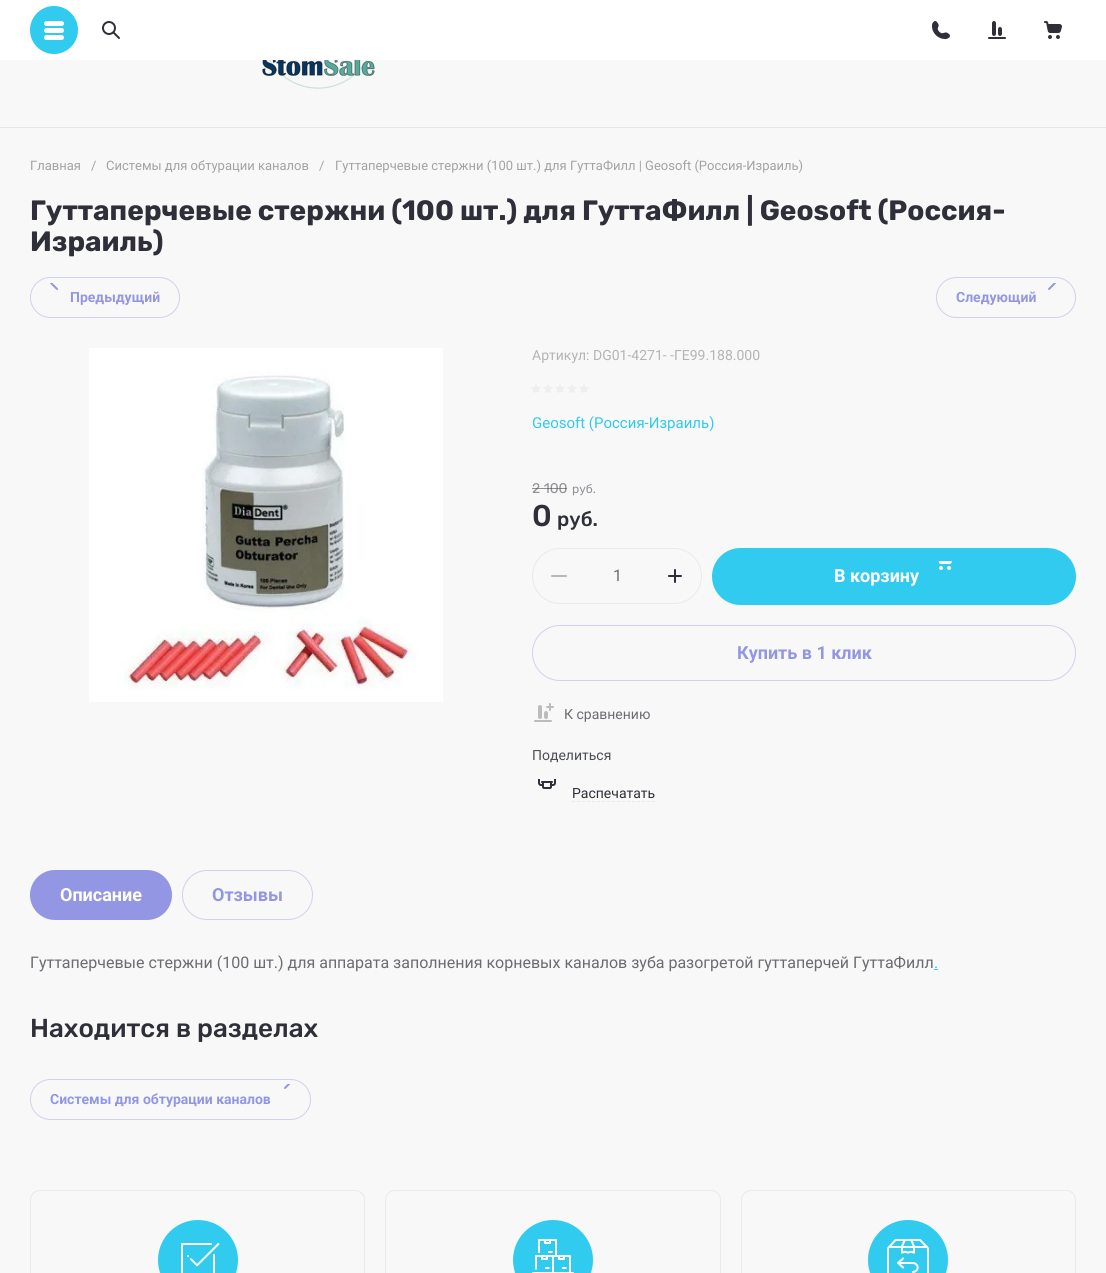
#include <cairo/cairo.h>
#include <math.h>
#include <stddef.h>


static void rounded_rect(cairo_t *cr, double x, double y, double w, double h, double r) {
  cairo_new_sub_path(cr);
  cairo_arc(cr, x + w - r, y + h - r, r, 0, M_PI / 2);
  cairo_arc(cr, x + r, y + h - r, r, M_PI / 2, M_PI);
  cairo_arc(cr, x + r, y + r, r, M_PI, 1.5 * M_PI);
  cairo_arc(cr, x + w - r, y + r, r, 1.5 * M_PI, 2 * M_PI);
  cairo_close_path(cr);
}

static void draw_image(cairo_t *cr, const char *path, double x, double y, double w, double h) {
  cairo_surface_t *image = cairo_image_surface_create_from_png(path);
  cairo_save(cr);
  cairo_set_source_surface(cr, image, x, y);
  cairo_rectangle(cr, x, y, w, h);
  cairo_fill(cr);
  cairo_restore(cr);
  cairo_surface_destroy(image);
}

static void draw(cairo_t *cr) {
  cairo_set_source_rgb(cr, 248 / 255.0, 248 / 255.0, 248 / 255.0);
  cairo_paint(cr);
  cairo_set_source_rgb(cr, 229 / 255.0, 230 / 255.0, 236 / 255.0);
  cairo_rectangle(cr, 0, 127, 1106, 1);
  cairo_fill(cr);
  cairo_set_source_rgb(cr, 1, 1, 1);
  cairo_rectangle(cr, 0, 0, 1106, 60);
  cairo_fill(cr);
  cairo_set_source_rgb(cr, 48 / 255.0, 203 / 255.0, 238 / 255.0);
  cairo_arc(cr, 54, 30, 24, 0, 2 * M_PI);
  cairo_fill(cr);
  draw_image(cr, "images/1.png", 44, 21, 20, 19);
  draw_image(cr, "images/2.png", 102, 21, 18, 18);
  draw_image(cr, "images/3.png", 932, 21, 18, 18);
  draw_image(cr, "images/4.png", 988, 21, 18, 18);
  draw_image(cr, "images/5.png", 1044, 21, 18, 18);
  draw_image(cr, "images/6.png", 262, 60, 113, 29);
  rounded_rect(cr, 30.5, 277.5, 149, 40, 20);
  cairo_set_source_rgb(cr, 208 / 255.0, 209 / 255.0, 239 / 255.0);
  cairo_set_line_width(cr, 1);
  cairo_stroke(cr);
  draw_image(cr, "images/7.png", 50, 283, 8, 7);
  rounded_rect(cr, 936.5, 277.5, 139, 40, 20);
  cairo_stroke(cr);
  draw_image(cr, "images/8.png", 1048, 283, 8, 7);
  draw_image(cr, "images/9.png", 89, 348, 354, 354);
  draw_image(cr, "images/10.png", 531, 384, 58, 9);
  rounded_rect(cr, 532.5, 548.5, 169, 55, 27.5);
  cairo_set_source_rgb(cr, 233 / 255.0, 233 / 255.0, 238 / 255.0);
  cairo_stroke(cr);
  draw_image(cr, "images/11.png", 551, 575, 16, 2);
  draw_image(cr, "images/12.png", 668, 569, 14, 14);
  cairo_set_source_rgb(cr, 48 / 255.0, 203 / 255.0, 238 / 255.0);
  rounded_rect(cr, 712, 548, 364, 57, 28.5);
  cairo_fill(cr);
  draw_image(cr, "images/13.png", 938, 561, 14, 9);
  rounded_rect(cr, 532.5, 625.5, 543, 55, 27.5);
  cairo_set_source_rgb(cr, 208 / 255.0, 209 / 255.0, 239 / 255.0);
  cairo_stroke(cr);
  draw_image(cr, "images/14.png", 534, 703, 20, 19);
  draw_image(cr, "images/15.png", 538, 779, 18, 10);
  cairo_new_path(cr);
  cairo_move_to(cr, 572, 801.5);
  cairo_line_to(cr, 655, 801.5);
  cairo_set_source_rgb(cr, 233 / 255.0, 233 / 255.0, 238 / 255.0);
  cairo_set_dash(cr, (double[]){3, 2}, 2, 0);
  cairo_stroke(cr);
  cairo_set_source_rgb(cr, 147 / 255.0, 150 / 255.0, 226 / 255.0);
  rounded_rect(cr, 30, 870, 142, 50, 25);
  cairo_fill(cr);
  rounded_rect(cr, 182.5, 870.5, 130, 49, 24.5);
  cairo_set_source_rgb(cr, 208 / 255.0, 209 / 255.0, 239 / 255.0);
  cairo_set_dash(cr, NULL, 0, 0);
  cairo_stroke(cr);
  cairo_set_source_rgb(cr, 48 / 255.0, 203 / 255.0, 238 / 255.0);
  cairo_rectangle(cr, 934, 969, 4, 1);
  cairo_fill(cr);
  rounded_rect(cr, 30.5, 1079.5, 280, 40, 20);
  cairo_set_source_rgb(cr, 208 / 255.0, 209 / 255.0, 239 / 255.0);
  cairo_stroke(cr);
  draw_image(cr, "images/16.png", 284, 1084, 6, 5);
  rounded_rect(cr, 30.5, 1190.5, 334, 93, 9.5);
  cairo_set_source_rgb(cr, 233 / 255.0, 233 / 255.0, 238 / 255.0);
  cairo_stroke(cr);
  cairo_set_source_rgb(cr, 48 / 255.0, 203 / 255.0, 238 / 255.0);
  cairo_arc(cr, 198, 1260, 40, 0, 2 * M_PI);
  cairo_fill(cr);
  draw_image(cr, "images/17.png", 181, 1243, 39, 30);
  rounded_rect(cr, 385.5, 1190.5, 335, 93, 9.5);
  cairo_set_source_rgb(cr, 233 / 255.0, 233 / 255.0, 238 / 255.0);
  cairo_stroke(cr);
  cairo_set_source_rgb(cr, 48 / 255.0, 203 / 255.0, 238 / 255.0);
  cairo_arc(cr, 553, 1260, 40, 0, 2 * M_PI);
  cairo_fill(cr);
  draw_image(cr, "images/18.png", 532, 1239, 42, 34);
  rounded_rect(cr, 741.5, 1190.5, 334, 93, 9.5);
  cairo_set_source_rgb(cr, 233 / 255.0, 233 / 255.0, 238 / 255.0);
  cairo_stroke(cr);
  cairo_set_source_rgb(cr, 48 / 255.0, 203 / 255.0, 238 / 255.0);
  cairo_arc(cr, 908, 1260, 40, 0, 2 * M_PI);
  cairo_fill(cr);
  draw_image(cr, "images/19.png", 887, 1239, 42, 34);
  cairo_select_font_face(cr, "Roboto", CAIRO_FONT_SLANT_NORMAL, CAIRO_FONT_WEIGHT_NORMAL);
  cairo_set_font_size(cr, 13);
  cairo_set_source_rgb(cr, 162 / 255.0, 163 / 255.0, 166 / 255.0);
  cairo_move_to(cr, 30, 170);
  cairo_show_text(cr, "Главная");
  cairo_move_to(cr, 91, 170);
  cairo_show_text(cr, "/");
  cairo_move_to(cr, 106, 170);
  cairo_show_text(cr, "Системы для обтурации каналов");
  cairo_move_to(cr, 319, 170);
  cairo_show_text(cr, "/");
  cairo_move_to(cr, 335, 170);
  cairo_show_text(cr, "Гуттаперчевые стержни (100 шт.) для ГуттаФилл | Geosoft (Россия-Израиль)");
  cairo_select_font_face(cr, "Rubik", CAIRO_FONT_SLANT_NORMAL, CAIRO_FONT_WEIGHT_BOLD);
  cairo_set_font_size(cr, 28);
  cairo_set_source_rgb(cr, 46 / 255.0, 47 / 255.0, 56 / 255.0);
  cairo_move_to(cr, 30, 220);
  cairo_show_text(cr, "Гуттаперчевые стержни (100 шт.) для ГуттаФилл | Geosoft (Россия-");
  cairo_move_to(cr, 30, 251);
  cairo_show_text(cr, "Израиль)");
  cairo_select_font_face(cr, "Roboto", CAIRO_FONT_SLANT_NORMAL, CAIRO_FONT_WEIGHT_BOLD);
  cairo_set_font_size(cr, 14);
  cairo_set_source_rgb(cr, 147 / 255.0, 150 / 255.0, 226 / 255.0);
  cairo_move_to(cr, 70, 302);
  cairo_show_text(cr, "Предыдущий");
  cairo_move_to(cr, 956, 302);
  cairo_show_text(cr, "Следующий");
  cairo_select_font_face(cr, "Roboto", CAIRO_FONT_SLANT_NORMAL, CAIRO_FONT_WEIGHT_NORMAL);
  cairo_set_source_rgb(cr, 179 / 255.0, 180 / 255.0, 182 / 255.0);
  cairo_move_to(cr, 532, 360);
  cairo_show_text(cr, "Артикул: DG01-4271- -ГЕ99.188.000");
  cairo_set_font_size(cr, 15);
  cairo_set_source_rgb(cr, 48 / 255.0, 203 / 255.0, 238 / 255.0);
  cairo_move_to(cr, 532, 428);
  cairo_show_text(cr, "Geosoft (Россия-Израиль)");
  cairo_select_font_face(cr, "Rubik", CAIRO_FONT_SLANT_NORMAL, CAIRO_FONT_WEIGHT_NORMAL);
  cairo_set_font_size(cr, 14);
  cairo_set_source_rgb(cr, 144 / 255.0, 146 / 255.0, 150 / 255.0);
  cairo_move_to(cr, 532, 493);
  cairo_show_text(cr, "2 100");
  cairo_set_source_rgba(cr, 75 / 255.0, 78 / 255.0, 84 / 255.0, 0.6);
  cairo_rectangle(cr, 532, 488, 35, 1);
  cairo_fill(cr);
  cairo_set_font_size(cr, 12);
  cairo_set_source_rgb(cr, 144 / 255.0, 146 / 255.0, 150 / 255.0);
  cairo_move_to(cr, 572, 493);
  cairo_show_text(cr, "руб.");
  cairo_select_font_face(cr, "Rubik Medium", CAIRO_FONT_SLANT_NORMAL, CAIRO_FONT_WEIGHT_NORMAL);
  cairo_set_font_size(cr, 30);
  cairo_set_source_rgb(cr, 46 / 255.0, 47 / 255.0, 56 / 255.0);
  cairo_move_to(cr, 532, 526);
  cairo_show_text(cr, "0");
  cairo_set_font_size(cr, 20);
  cairo_move_to(cr, 557, 526);
  cairo_show_text(cr, "руб.");
  cairo_select_font_face(cr, "Roboto", CAIRO_FONT_SLANT_NORMAL, CAIRO_FONT_WEIGHT_NORMAL);
  cairo_set_font_size(cr, 16);
  cairo_set_source_rgb(cr, 107 / 255.0, 107 / 255.0, 114 / 255.0);
  cairo_move_to(cr, 613, 581);
  cairo_show_text(cr, "1");
  cairo_select_font_face(cr, "Roboto", CAIRO_FONT_SLANT_NORMAL, CAIRO_FONT_WEIGHT_BOLD);
  cairo_set_font_size(cr, 18);
  cairo_set_source_rgb(cr, 1, 1, 1);
  cairo_move_to(cr, 834, 582);
  cairo_show_text(cr, "В корзину");
  cairo_set_source_rgb(cr, 147 / 255.0, 150 / 255.0, 226 / 255.0);
  cairo_move_to(cr, 737, 659);
  cairo_show_text(cr, "Купить в 1 клик");
  cairo_select_font_face(cr, "Roboto", CAIRO_FONT_SLANT_NORMAL, CAIRO_FONT_WEIGHT_NORMAL);
  cairo_set_font_size(cr, 14);
  cairo_set_source_rgb(cr, 107 / 255.0, 107 / 255.0, 114 / 255.0);
  cairo_move_to(cr, 564, 719);
  cairo_show_text(cr, "К сравнению");
  cairo_set_source_rgb(cr, 75 / 255.0, 78 / 255.0, 84 / 255.0);
  cairo_move_to(cr, 532, 760);
  cairo_show_text(cr, "Поделиться");
  cairo_set_source_rgb(cr, 46 / 255.0, 47 / 255.0, 56 / 255.0);
  cairo_move_to(cr, 572, 798);
  cairo_show_text(cr, "Распечатать");
  cairo_select_font_face(cr, "Roboto", CAIRO_FONT_SLANT_NORMAL, CAIRO_FONT_WEIGHT_BOLD);
  cairo_set_font_size(cr, 18);
  cairo_set_source_rgb(cr, 1, 1, 1);
  cairo_move_to(cr, 60, 901);
  cairo_show_text(cr, "Описание");
  cairo_set_source_rgb(cr, 147 / 255.0, 150 / 255.0, 226 / 255.0);
  cairo_move_to(cr, 212, 901);
  cairo_show_text(cr, "Отзывы");
  cairo_select_font_face(cr, "Roboto", CAIRO_FONT_SLANT_NORMAL, CAIRO_FONT_WEIGHT_NORMAL);
  cairo_set_font_size(cr, 16);
  cairo_set_source_rgb(cr, 107 / 255.0, 107 / 255.0, 114 / 255.0);
  cairo_move_to(cr, 30, 968);
  cairo_show_text(cr, "Гуттаперчевые стержни (100 шт.) для аппарата заполнения корневых каналов зуба разогретой гуттаперчей ГуттаФилл");
  cairo_set_source_rgb(cr, 48 / 255.0, 203 / 255.0, 238 / 255.0);
  cairo_move_to(cr, 934, 968);
  cairo_show_text(cr, ".");
  cairo_select_font_face(cr, "Rubik Medium", CAIRO_FONT_SLANT_NORMAL, CAIRO_FONT_WEIGHT_NORMAL);
  cairo_set_font_size(cr, 26);
  cairo_set_source_rgb(cr, 46 / 255.0, 47 / 255.0, 56 / 255.0);
  cairo_move_to(cr, 30, 1037);
  cairo_show_text(cr, "Находится в разделах");
  cairo_select_font_face(cr, "Roboto", CAIRO_FONT_SLANT_NORMAL, CAIRO_FONT_WEIGHT_BOLD);
  cairo_set_font_size(cr, 14);
  cairo_set_source_rgb(cr, 147 / 255.0, 150 / 255.0, 226 / 255.0);
  cairo_move_to(cr, 50, 1104);
  cairo_show_text(cr, "Системы для обтурации каналов");
}

int main(void) {
  cairo_surface_t *surface = cairo_image_surface_create(CAIRO_FORMAT_RGB24, 1106, 1273);
  cairo_t *cr = cairo_create(surface);
  cairo_font_options_t *options = cairo_font_options_create();
  cairo_font_options_set_hint_metrics(options, CAIRO_HINT_METRICS_OFF);
  cairo_font_options_set_hint_style(options, CAIRO_HINT_STYLE_NONE);
  cairo_set_font_options(cr, options);
  cairo_set_miter_limit(cr, 4);
  draw(cr);
  cairo_surface_write_to_png(surface, "out.png");
  cairo_font_options_destroy(options);
  cairo_destroy(cr);
  cairo_surface_destroy(surface);
  return 0;
}
